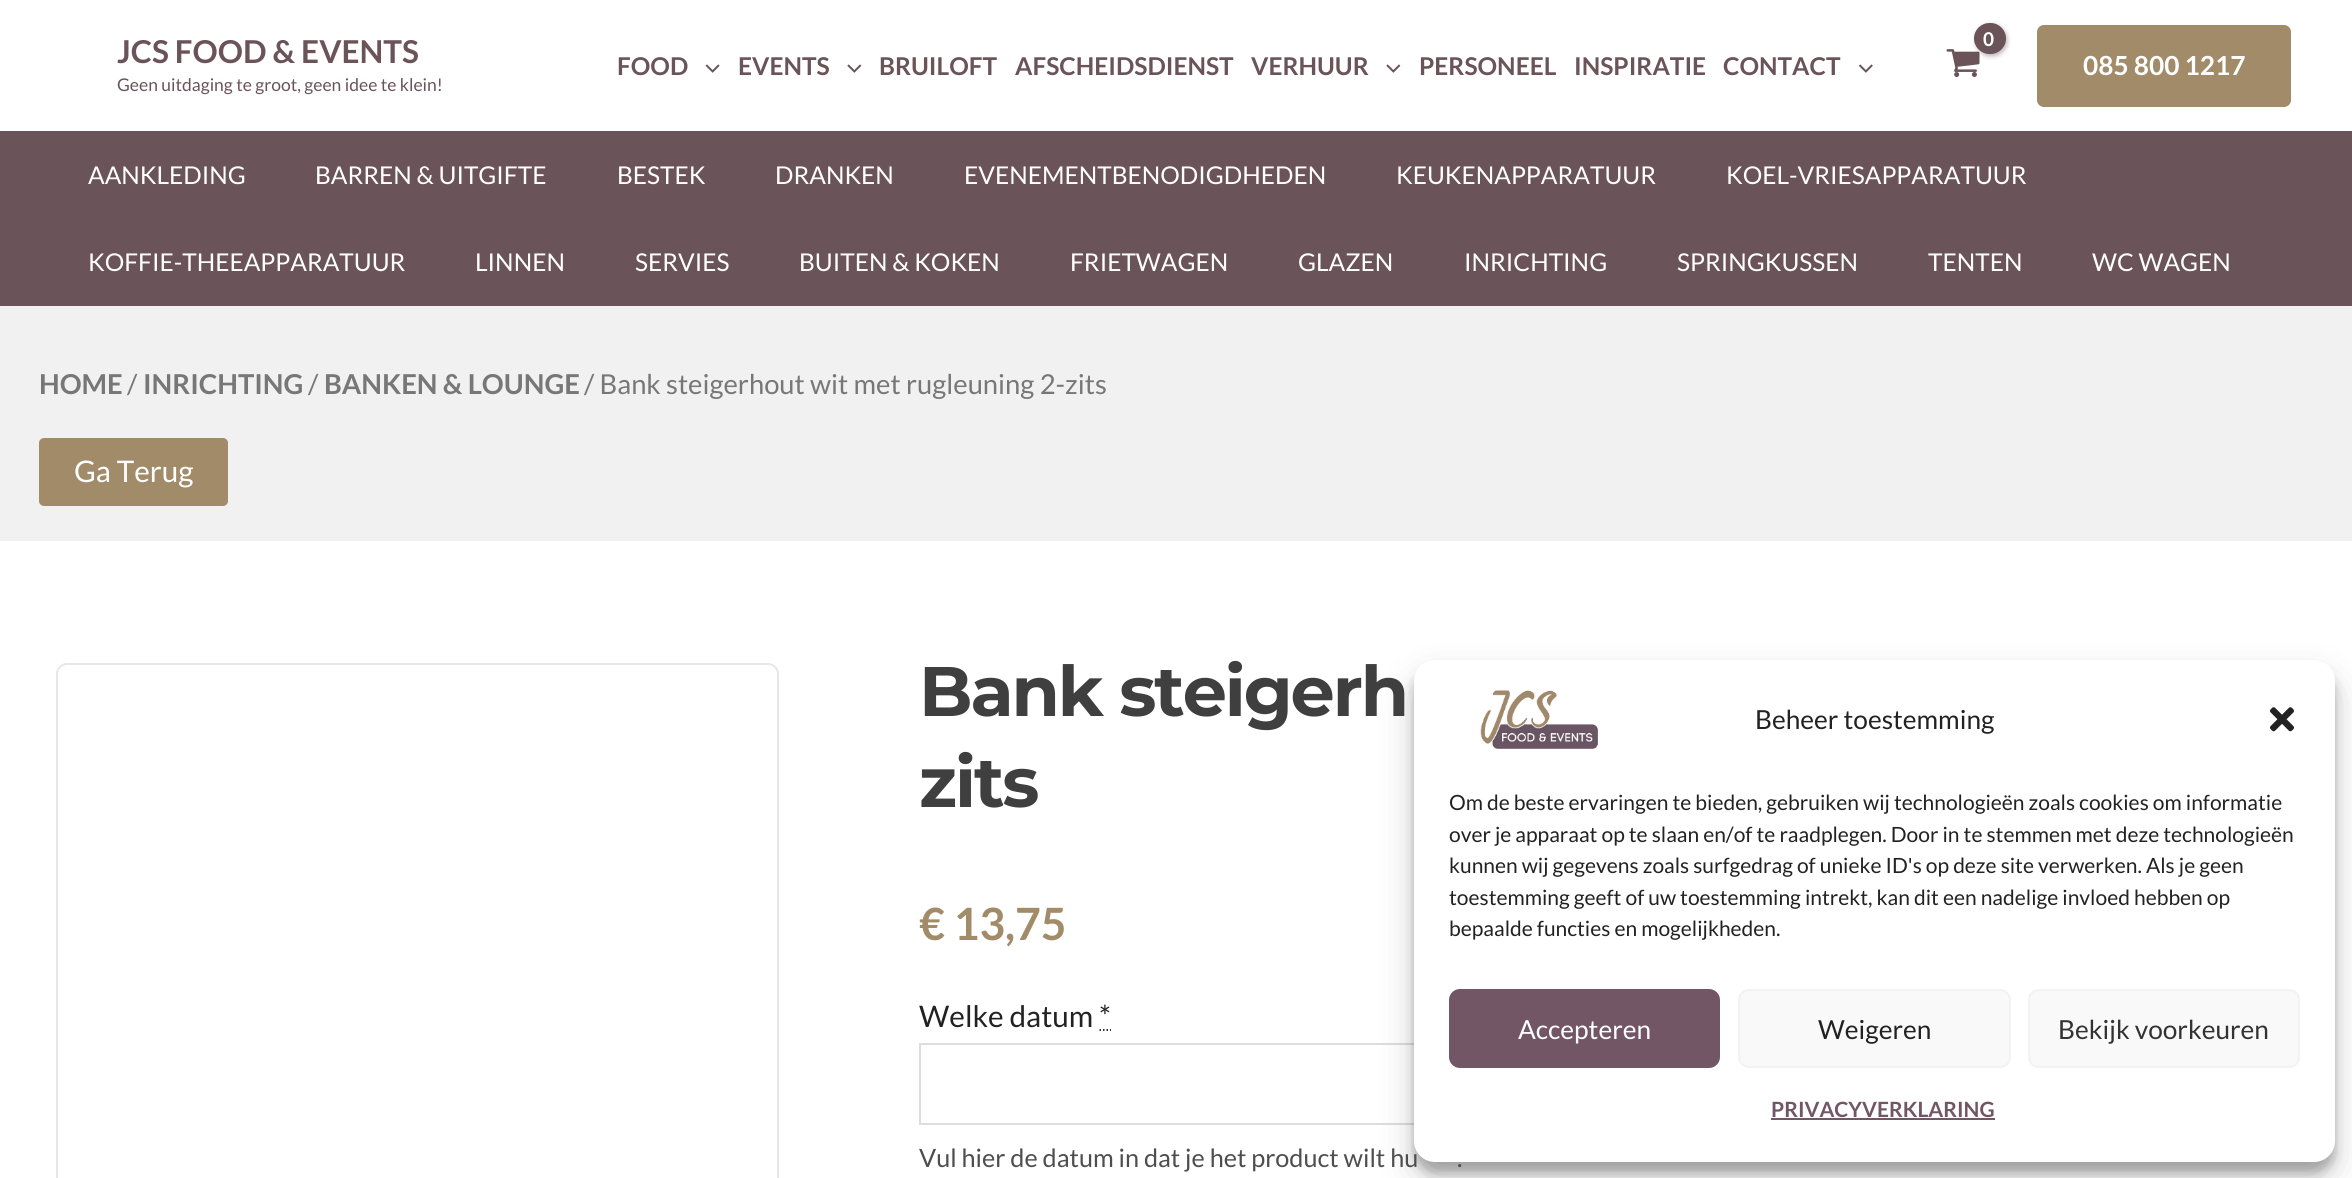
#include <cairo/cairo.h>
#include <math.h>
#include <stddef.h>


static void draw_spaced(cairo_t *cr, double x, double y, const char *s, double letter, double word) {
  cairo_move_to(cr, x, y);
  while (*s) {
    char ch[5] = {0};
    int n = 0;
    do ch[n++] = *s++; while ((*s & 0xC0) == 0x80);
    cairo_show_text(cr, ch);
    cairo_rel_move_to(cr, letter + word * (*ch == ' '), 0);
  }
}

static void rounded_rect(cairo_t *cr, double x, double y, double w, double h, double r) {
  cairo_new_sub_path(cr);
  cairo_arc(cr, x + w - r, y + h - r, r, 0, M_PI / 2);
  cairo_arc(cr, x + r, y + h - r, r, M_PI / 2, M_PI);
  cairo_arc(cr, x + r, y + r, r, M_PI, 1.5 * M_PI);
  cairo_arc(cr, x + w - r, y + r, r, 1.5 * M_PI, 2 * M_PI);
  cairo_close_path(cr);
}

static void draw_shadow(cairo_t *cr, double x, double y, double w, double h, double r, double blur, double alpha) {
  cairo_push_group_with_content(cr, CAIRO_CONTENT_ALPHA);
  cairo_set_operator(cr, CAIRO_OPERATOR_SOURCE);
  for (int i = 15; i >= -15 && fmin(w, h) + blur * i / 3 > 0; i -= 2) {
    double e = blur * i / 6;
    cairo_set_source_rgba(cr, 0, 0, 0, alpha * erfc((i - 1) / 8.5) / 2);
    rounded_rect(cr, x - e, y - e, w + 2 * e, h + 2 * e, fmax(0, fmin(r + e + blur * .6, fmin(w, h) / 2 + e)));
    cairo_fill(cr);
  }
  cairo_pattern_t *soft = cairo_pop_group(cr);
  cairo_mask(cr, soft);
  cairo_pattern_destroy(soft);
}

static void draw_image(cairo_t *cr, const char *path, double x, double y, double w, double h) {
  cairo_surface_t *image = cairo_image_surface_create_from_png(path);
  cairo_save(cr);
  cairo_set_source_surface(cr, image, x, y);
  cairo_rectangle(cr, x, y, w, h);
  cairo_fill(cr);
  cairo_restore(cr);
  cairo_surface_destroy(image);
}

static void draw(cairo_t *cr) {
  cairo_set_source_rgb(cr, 1, 1, 1);
  cairo_paint(cr);
  draw_image(cr, "images/1.png", 1946, 49, 34, 28);
  cairo_set_source_rgb(cr, 0, 0, 0);
  draw_shadow(cr, 1976, 25, 31, 31, 15.5, 2.5, 0.3);
  cairo_set_source_rgb(cr, 106 / 255.0, 83 / 255.0, 89 / 255.0);
  rounded_rect(cr, 1974, 23, 32, 31, 15.5);
  cairo_fill(cr);
  draw_image(cr, "images/2.png", 705, 64, 15, 9);
  draw_image(cr, "images/3.png", 847, 64, 15, 9);
  draw_image(cr, "images/3.png", 1386, 64, 15, 9);
  draw_image(cr, "images/4.png", 1859, 64, 14, 9);
  cairo_set_source_rgb(cr, 162 / 255.0, 139 / 255.0, 105 / 255.0);
  rounded_rect(cr, 2038, 26, 252, 80, 6);
  cairo_fill_preserve(cr);
  cairo_stroke(cr);
  cairo_set_source_rgb(cr, 106 / 255.0, 83 / 255.0, 89 / 255.0);
  cairo_rectangle(cr, 0, 131, 2352, 175);
  cairo_fill(cr);
  cairo_set_source_rgb(cr, 241 / 255.0, 241 / 255.0, 241 / 255.0);
  cairo_rectangle(cr, 0, 306, 2352, 235);
  cairo_fill(cr);
  cairo_set_source_rgb(cr, 162 / 255.0, 139 / 255.0, 105 / 255.0);
  rounded_rect(cr, 39, 438, 189, 68, 5);
  cairo_fill(cr);
  rounded_rect(cr, 57, 664, 721, 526, 10);
  cairo_set_source_rgb(cr, 231 / 255.0, 231 / 255.0, 231 / 255.0);
  cairo_stroke(cr);
  cairo_new_path(cr);
  cairo_move_to(cr, 1099.5, 1030);
  cairo_line_to(cr, 1101, 1030);
  cairo_move_to(cr, 1103, 1030);
  cairo_line_to(cr, 1104.5, 1030);
  cairo_move_to(cr, 1106.5, 1030);
  cairo_line_to(cr, 1108, 1030);
  cairo_move_to(cr, 1110, 1030);
  cairo_line_to(cr, 1111, 1030);
  cairo_set_source_rgb(cr, 34 / 255.0, 34 / 255.0, 34 / 255.0);
  cairo_set_line_width(cr, 1.8);
  cairo_stroke(cr);
  cairo_rectangle(cr, 920, 1044, 1393, 80);
  cairo_set_source_rgb(cr, 221 / 255.0, 221 / 255.0, 221 / 255.0);
  cairo_set_line_width(cr, 2);
  cairo_stroke(cr);
  cairo_set_source_rgb(cr, 0, 0, 0);
  draw_shadow(cr, 1414, 670, 921, 503, 21, 5, 0.23);
  draw_shadow(cr, 1414, 677, 921, 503, 21, 17.5, 0.19);
  cairo_select_font_face(cr, "Lato", CAIRO_FONT_SLANT_NORMAL, CAIRO_FONT_WEIGHT_BOLD);
  cairo_set_font_size(cr, 31.5);
  cairo_set_source_rgb(cr, 106 / 255.0, 83 / 255.0, 89 / 255.0);
  cairo_move_to(cr, 117, 63);
  cairo_show_text(cr, "JCS FOOD & EVENTS");
  cairo_select_font_face(cr, "Lato", CAIRO_FONT_SLANT_NORMAL, CAIRO_FONT_WEIGHT_NORMAL);
  cairo_set_font_size(cr, 17.5);
  cairo_move_to(cr, 117, 91);
  cairo_show_text(cr, "Geen uitdaging te groot, geen idee te klein!");
  cairo_select_font_face(cr, "Lato", CAIRO_FONT_SLANT_NORMAL, CAIRO_FONT_WEIGHT_BOLD);
  cairo_set_font_size(cr, 19);
  cairo_set_source_rgb(cr, 1, 1, 1);
  draw_spaced(cr, 1983, 46, "0", -1, 0);
  cairo_set_font_size(cr, 24.5);
  cairo_set_source_rgb(cr, 106 / 255.0, 83 / 255.0, 89 / 255.0);
  cairo_move_to(cr, 617, 75);
  cairo_show_text(cr, "FOOD");
  cairo_move_to(cr, 738, 75);
  cairo_show_text(cr, "EVENTS");
  cairo_move_to(cr, 879, 75);
  cairo_show_text(cr, "BRUILOFT");
  cairo_move_to(cr, 1015, 75);
  cairo_show_text(cr, "AFSCHEIDSDIENST");
  cairo_move_to(cr, 1251, 75);
  cairo_show_text(cr, "VERHUUR");
  cairo_move_to(cr, 1419, 75);
  cairo_show_text(cr, "PERSONEEL");
  cairo_move_to(cr, 1574, 75);
  cairo_show_text(cr, "INSPIRATIE");
  cairo_move_to(cr, 1723, 75);
  cairo_show_text(cr, "CONTACT");
  cairo_set_font_size(cr, 26.25);
  cairo_set_source_rgb(cr, 1, 1, 1);
  cairo_move_to(cr, 2083, 75);
  cairo_show_text(cr, "085 800 1217");
  cairo_select_font_face(cr, "Lato", CAIRO_FONT_SLANT_NORMAL, CAIRO_FONT_WEIGHT_NORMAL);
  cairo_set_font_size(cr, 24.5);
  cairo_move_to(cr, 88, 184);
  cairo_show_text(cr, "AANKLEDING");
  cairo_move_to(cr, 315, 184);
  cairo_show_text(cr, "BARREN & UITGIFTE");
  cairo_move_to(cr, 617, 184);
  cairo_show_text(cr, "BESTEK");
  cairo_move_to(cr, 775, 184);
  cairo_show_text(cr, "DRANKEN");
  cairo_move_to(cr, 964, 184);
  cairo_show_text(cr, "EVENEMENTBENODIGDHEDEN");
  cairo_move_to(cr, 1396, 184);
  cairo_show_text(cr, "KEUKENAPPARATUUR");
  cairo_move_to(cr, 1726, 184);
  cairo_show_text(cr, "KOEL-VRIESAPPARATUUR");
  cairo_move_to(cr, 88, 271);
  cairo_show_text(cr, "KOFFIE-THEEAPPARATUUR");
  cairo_move_to(cr, 475, 271);
  cairo_show_text(cr, "LINNEN");
  cairo_move_to(cr, 635, 271);
  cairo_show_text(cr, "SERVIES");
  cairo_move_to(cr, 799, 271);
  cairo_show_text(cr, "BUITEN & KOKEN");
  cairo_move_to(cr, 1070, 271);
  cairo_show_text(cr, "FRIETWAGEN");
  cairo_move_to(cr, 1298, 271);
  cairo_show_text(cr, "GLAZEN");
  cairo_move_to(cr, 1464, 271);
  cairo_show_text(cr, "INRICHTING");
  cairo_move_to(cr, 1677, 271);
  cairo_show_text(cr, "SPRINGKUSSEN");
  cairo_move_to(cr, 1928, 271);
  cairo_show_text(cr, "TENTEN");
  cairo_move_to(cr, 2092, 271);
  cairo_show_text(cr, "WC WAGEN");
  cairo_select_font_face(cr, "Lato", CAIRO_FONT_SLANT_NORMAL, CAIRO_FONT_WEIGHT_BOLD);
  cairo_set_font_size(cr, 27.4);
  cairo_set_source_rgb(cr, 119 / 255.0, 119 / 255.0, 119 / 255.0);
  cairo_move_to(cr, 39, 394);
  cairo_show_text(cr, "HOME");
  cairo_select_font_face(cr, "Lato", CAIRO_FONT_SLANT_NORMAL, CAIRO_FONT_WEIGHT_NORMAL);
  cairo_move_to(cr, 127, 394);
  cairo_show_text(cr, "/");
  cairo_select_font_face(cr, "Lato", CAIRO_FONT_SLANT_NORMAL, CAIRO_FONT_WEIGHT_BOLD);
  cairo_move_to(cr, 143, 394);
  cairo_show_text(cr, "INRICHTING");
  cairo_select_font_face(cr, "Lato", CAIRO_FONT_SLANT_NORMAL, CAIRO_FONT_WEIGHT_NORMAL);
  cairo_move_to(cr, 308, 394);
  cairo_show_text(cr, "/");
  cairo_select_font_face(cr, "Lato", CAIRO_FONT_SLANT_NORMAL, CAIRO_FONT_WEIGHT_BOLD);
  cairo_move_to(cr, 324, 394);
  cairo_show_text(cr, "BANKEN & LOUNGE");
  cairo_select_font_face(cr, "Lato", CAIRO_FONT_SLANT_NORMAL, CAIRO_FONT_WEIGHT_NORMAL);
  cairo_move_to(cr, 584, 394);
  cairo_show_text(cr, "/ Bank steigerhout wit met rugleuning 2-zits");
  cairo_set_font_size(cr, 29.75);
  cairo_set_source_rgb(cr, 1, 1, 1);
  cairo_move_to(cr, 74, 482);
  cairo_show_text(cr, "Ga Terug");
  cairo_select_font_face(cr, "Montserrat", CAIRO_FONT_SLANT_NORMAL, CAIRO_FONT_WEIGHT_BOLD);
  cairo_set_font_size(cr, 70);
  cairo_set_source_rgb(cr, 63 / 255.0, 63 / 255.0, 63 / 255.0);
  draw_spaced(cr, 919, 716, "Bank steigerh", -2.1, 0);
  draw_spaced(cr, 919, 807, "zits", -2.1, 0);
  cairo_select_font_face(cr, "Lato", CAIRO_FONT_SLANT_NORMAL, CAIRO_FONT_WEIGHT_BOLD);
  cairo_set_font_size(cr, 44.5);
  cairo_set_source_rgb(cr, 162 / 255.0, 139 / 255.0, 105 / 255.0);
  cairo_move_to(cr, 919, 940);
  cairo_show_text(cr, "€ 13,75");
  cairo_select_font_face(cr, "Lato", CAIRO_FONT_SLANT_NORMAL, CAIRO_FONT_WEIGHT_NORMAL);
  cairo_set_font_size(cr, 29.75);
  cairo_set_source_rgb(cr, 34 / 255.0, 34 / 255.0, 34 / 255.0);
  cairo_move_to(cr, 919, 1027);
  cairo_show_text(cr, "Welke datum *");
  cairo_set_font_size(cr, 25.25);
  cairo_set_source_rgb(cr, 78 / 255.0, 78 / 255.0, 78 / 255.0);
  cairo_move_to(cr, 919, 1167);
  cairo_show_text(cr, "Vul hier de datum in dat je het product wilt hu");
  cairo_move_to(cr, 1457, 1167);
  cairo_show_text(cr, ".");
  cairo_set_source_rgb(cr, 1, 1, 1);
  rounded_rect(cr, 1414, 660, 921, 502, 21);
  cairo_fill(cr);
  draw_image(cr, "images/5.png", 1480, 690, 118, 59);
  cairo_set_font_size(cr, 26.25);
  cairo_set_source_rgb(cr, 34 / 255.0, 34 / 255.0, 34 / 255.0);
  cairo_move_to(cr, 1755, 729);
  cairo_show_text(cr, "Beheer toestemming");
  draw_image(cr, "images/6.png", 2270, 707, 24, 25);
  cairo_set_font_size(cr, 21);
  cairo_move_to(cr, 1449, 810);
  cairo_show_text(cr, "Om de beste ervaringen te bieden, gebruiken wij technologieën zoals cookies om informatie");
  cairo_move_to(cr, 1449, 842);
  cairo_show_text(cr, "over je apparaat op te slaan en/of te raadplegen. Door in te stemmen met deze technologieën");
  cairo_move_to(cr, 1449, 873);
  cairo_show_text(cr, "kunnen wij gegevens zoals surfgedrag of unieke ID's op deze site verwerken. Als je geen");
  cairo_move_to(cr, 1449, 905);
  cairo_show_text(cr, "toestemming geeft of uw toestemming intrekt, kan dit een nadelige invloed hebben op");
  cairo_move_to(cr, 1449, 936);
  cairo_show_text(cr, "bepaalde functies en mogelijkheden.");
  cairo_set_source_rgb(cr, 114 / 255.0, 86 / 255.0, 101 / 255.0);
  rounded_rect(cr, 1450, 990, 269, 77, 10);
  cairo_fill_preserve(cr);
  cairo_stroke(cr);
  cairo_set_font_size(cr, 26.25);
  cairo_set_source_rgb(cr, 1, 1, 1);
  cairo_move_to(cr, 1518, 1039);
  cairo_show_text(cr, "Accepteren");
  cairo_set_source_rgb(cr, 249 / 255.0, 249 / 255.0, 249 / 255.0);
  rounded_rect(cr, 1739, 990, 271, 77, 10);
  cairo_fill_preserve(cr);
  cairo_set_source_rgb(cr, 242 / 255.0, 242 / 255.0, 242 / 255.0);
  cairo_stroke(cr);
  cairo_set_source_rgb(cr, 34 / 255.0, 34 / 255.0, 34 / 255.0);
  cairo_move_to(cr, 1818, 1039);
  cairo_show_text(cr, "Weigeren");
  cairo_set_source_rgb(cr, 249 / 255.0, 249 / 255.0, 249 / 255.0);
  rounded_rect(cr, 2029, 990, 270, 77, 10);
  cairo_fill_preserve(cr);
  cairo_set_source_rgb(cr, 242 / 255.0, 242 / 255.0, 242 / 255.0);
  cairo_stroke(cr);
  cairo_set_source_rgb(cr, 51 / 255.0, 51 / 255.0, 51 / 255.0);
  cairo_move_to(cr, 2058, 1039);
  cairo_show_text(cr, "Bekijk voorkeuren");
  cairo_select_font_face(cr, "Lato", CAIRO_FONT_SLANT_NORMAL, CAIRO_FONT_WEIGHT_BOLD);
  cairo_set_font_size(cr, 21);
  cairo_set_source_rgb(cr, 114 / 255.0, 86 / 255.0, 101 / 255.0);
  cairo_move_to(cr, 1771, 1117);
  cairo_show_text(cr, "PRIVACYVERKLARING");
  cairo_rectangle(cr, 1771, 1118, 224, 2);
  cairo_fill(cr);
}

int main(void) {
  cairo_surface_t *surface = cairo_image_surface_create(CAIRO_FORMAT_RGB24, 2352, 1178);
  cairo_t *cr = cairo_create(surface);
  cairo_font_options_t *options = cairo_font_options_create();
  cairo_font_options_set_hint_metrics(options, CAIRO_HINT_METRICS_OFF);
  cairo_font_options_set_hint_style(options, CAIRO_HINT_STYLE_NONE);
  cairo_set_font_options(cr, options);
  cairo_set_miter_limit(cr, 4);
  draw(cr);
  cairo_surface_write_to_png(surface, "out.png");
  cairo_font_options_destroy(options);
  cairo_destroy(cr);
  cairo_surface_destroy(surface);
  return 0;
}
